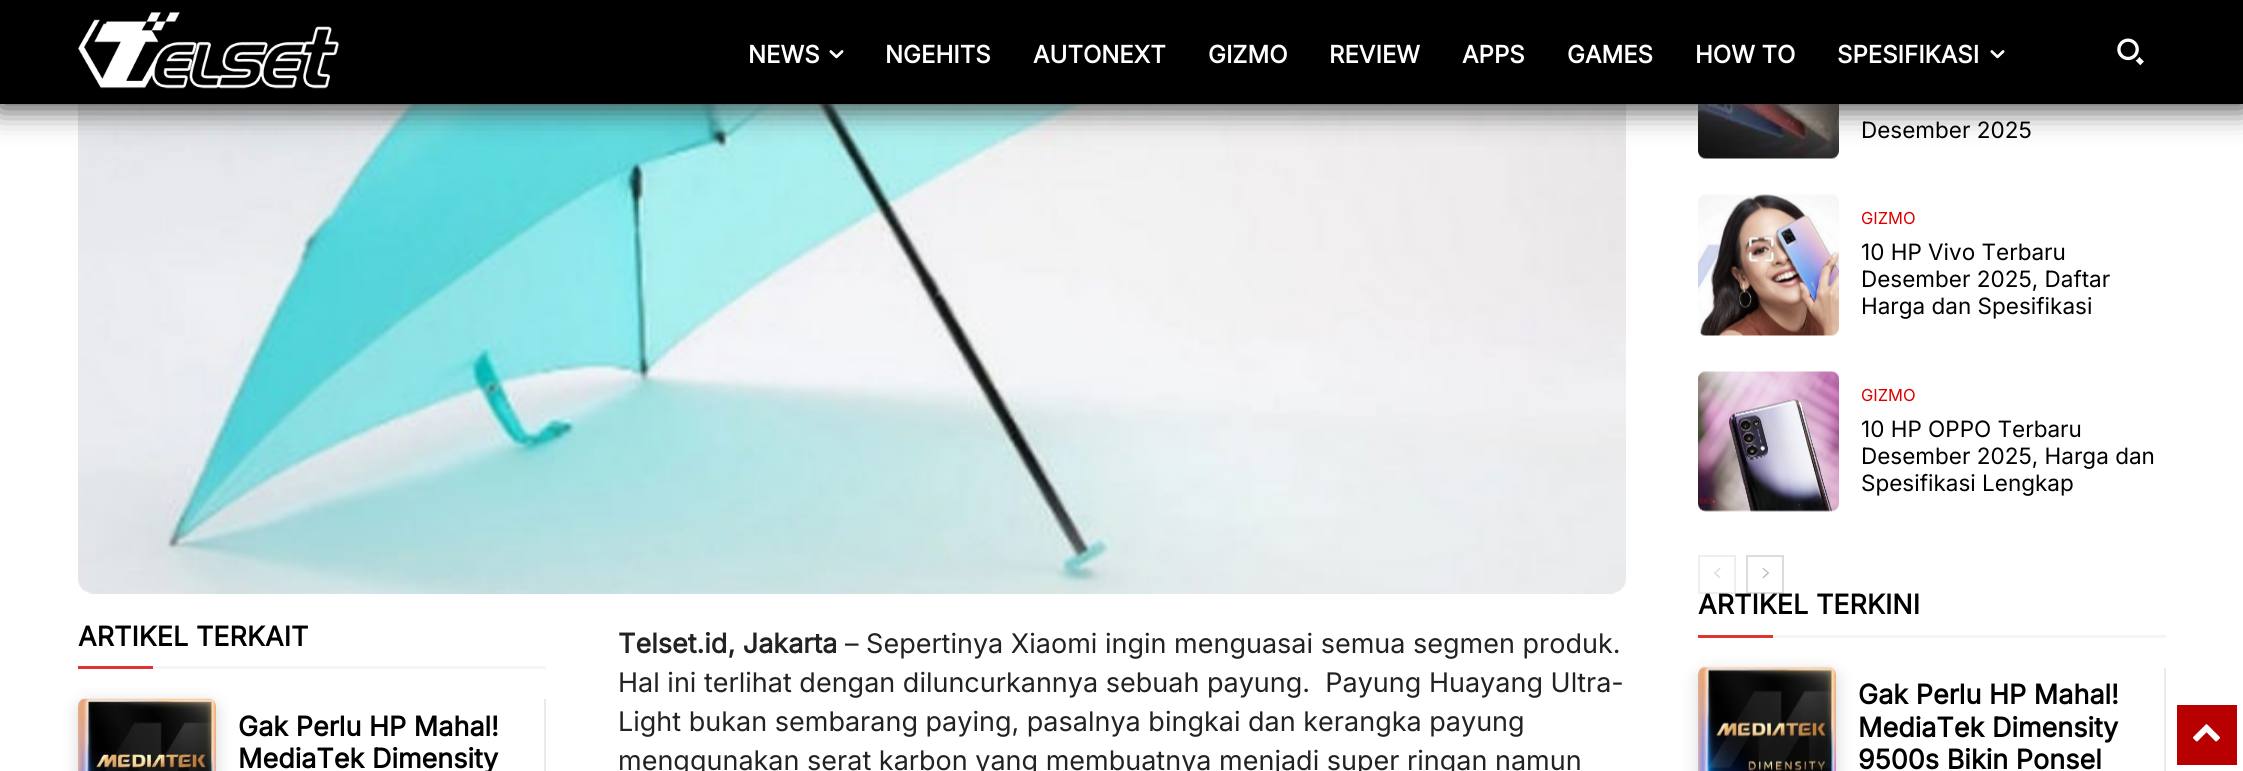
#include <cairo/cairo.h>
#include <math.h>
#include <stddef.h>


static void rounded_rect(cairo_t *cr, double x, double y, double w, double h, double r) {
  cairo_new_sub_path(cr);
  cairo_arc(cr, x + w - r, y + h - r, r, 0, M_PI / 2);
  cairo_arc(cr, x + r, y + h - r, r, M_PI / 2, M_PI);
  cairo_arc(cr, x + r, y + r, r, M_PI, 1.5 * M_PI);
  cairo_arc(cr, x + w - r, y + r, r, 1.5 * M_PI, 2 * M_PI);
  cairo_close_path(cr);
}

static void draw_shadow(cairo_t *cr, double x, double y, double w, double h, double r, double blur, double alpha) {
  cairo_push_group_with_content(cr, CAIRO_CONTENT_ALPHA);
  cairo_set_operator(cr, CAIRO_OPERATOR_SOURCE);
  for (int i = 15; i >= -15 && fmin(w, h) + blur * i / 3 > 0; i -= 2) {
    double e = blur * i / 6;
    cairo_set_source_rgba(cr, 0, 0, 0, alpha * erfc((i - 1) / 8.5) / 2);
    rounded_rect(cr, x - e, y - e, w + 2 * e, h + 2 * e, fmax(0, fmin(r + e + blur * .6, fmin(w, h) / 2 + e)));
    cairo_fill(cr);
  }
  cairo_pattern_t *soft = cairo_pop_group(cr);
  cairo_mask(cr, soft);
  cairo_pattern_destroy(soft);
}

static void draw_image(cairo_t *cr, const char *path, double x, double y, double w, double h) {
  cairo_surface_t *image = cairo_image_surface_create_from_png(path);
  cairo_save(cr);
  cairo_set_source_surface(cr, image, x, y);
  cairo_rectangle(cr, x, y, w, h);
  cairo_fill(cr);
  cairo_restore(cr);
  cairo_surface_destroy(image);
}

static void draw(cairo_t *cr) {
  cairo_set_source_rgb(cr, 1, 1, 1);
  cairo_paint(cr);
  cairo_set_source_rgb(cr, 0, 0, 0);
  cairo_rectangle(cr, 0, 0, 2243, 104);
  cairo_fill(cr);
  draw_image(cr, "images/1.png", 78, 12, 261, 77);
  draw_image(cr, "images/4.png", 78, 104, 1548, 490);
  draw_image(cr, "images/5.png", 1698, 104, 141, 55);
  cairo_save(cr);
  cairo_set_fill_rule(cr, CAIRO_FILL_RULE_EVEN_ODD);
  cairo_new_path(cr);
  cairo_move_to(cr, 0, 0);
  cairo_line_to(cr, 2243, 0);
  cairo_line_to(cr, 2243, 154);
  cairo_line_to(cr, 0, 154);
  cairo_close_path(cr);
  cairo_move_to(cr, 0, 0);
  cairo_line_to(cr, 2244, 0);
  cairo_line_to(cr, 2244, 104);
  cairo_line_to(cr, 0, 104);
  cairo_close_path(cr);
  cairo_clip(cr);
  cairo_set_source_rgb(cr, 63 / 255.0, 63 / 255.0, 63 / 255.0);
  draw_shadow(cr, -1, 2, 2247, 106, 0, 15, 1);
  cairo_restore(cr);
  draw_image(cr, "images/2.png", 829, 50, 15, 9);
  draw_image(cr, "images/2.png", 1990, 50, 15, 9);
  draw_image(cr, "images/3.png", 2117, 38, 27, 28);
  draw_image(cr, "images/6.png", 1698, 194, 141, 142);
  draw_image(cr, "images/7.png", 1698, 371, 141, 141);
  cairo_rectangle(cr, 1699, 556, 36, 37);
  cairo_set_source_rgb(cr, 238 / 255.0, 238 / 255.0, 238 / 255.0);
  cairo_stroke(cr);
  draw_image(cr, "images/8.png", 1714, 567, 7, 11);
  cairo_rectangle(cr, 1747, 556, 36, 37);
  cairo_set_source_rgb(cr, 220 / 255.0, 220 / 255.0, 220 / 255.0);
  cairo_stroke(cr);
  draw_image(cr, "images/9.png", 1762, 568, 7, 11);
  cairo_set_source_rgb(cr, 221 / 255.0, 51 / 255.0, 51 / 255.0);
  cairo_rectangle(cr, 78, 666, 75, 3);
  cairo_fill(cr);
  cairo_set_source_rgb(cr, 245 / 255.0, 245 / 255.0, 245 / 255.0);
  cairo_rectangle(cr, 153, 666, 393, 3);
  cairo_fill(cr);
  cairo_set_source_rgb(cr, 234 / 255.0, 234 / 255.0, 234 / 255.0);
  cairo_set_fill_rule(cr, CAIRO_FILL_RULE_EVEN_ODD);
  cairo_new_path(cr);
  cairo_move_to(cr, 78, 699);
  cairo_line_to(cr, 546, 699);
  cairo_line_to(cr, 546, 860);
  cairo_curve_to(cr, 546, 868, 539, 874, 531, 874);
  cairo_line_to(cr, 78, 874);
  cairo_close_path(cr);
  cairo_move_to(cr, 78, 699);
  cairo_line_to(cr, 544, 699);
  cairo_line_to(cr, 544, 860);
  cairo_curve_to(cr, 544, 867, 538, 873, 531, 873);
  cairo_line_to(cr, 78, 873);
  cairo_close_path(cr);
  cairo_fill(cr);
  cairo_set_source_rgb(cr, 7 / 255.0, 10 / 255.0, 25 / 255.0);
  draw_shadow(cr, 80, 705, 135, 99, 6, 9, 0.2);
  draw_image(cr, "images/10.png", 78, 698, 138, 73);
  cairo_set_source_rgb(cr, 221 / 255.0, 51 / 255.0, 51 / 255.0);
  cairo_rectangle(cr, 1698, 635, 75, 3);
  cairo_fill(cr);
  cairo_set_source_rgb(cr, 245 / 255.0, 245 / 255.0, 245 / 255.0);
  cairo_rectangle(cr, 1773, 635, 393, 3);
  cairo_fill(cr);
  cairo_set_source_rgb(cr, 234 / 255.0, 234 / 255.0, 234 / 255.0);
  cairo_new_path(cr);
  cairo_move_to(cr, 1698, 668);
  cairo_line_to(cr, 2166, 668);
  cairo_line_to(cr, 2166, 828);
  cairo_curve_to(cr, 2166, 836, 2159, 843, 2151, 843);
  cairo_line_to(cr, 1698, 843);
  cairo_close_path(cr);
  cairo_move_to(cr, 1698, 668);
  cairo_line_to(cr, 2164, 668);
  cairo_line_to(cr, 2164, 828);
  cairo_curve_to(cr, 2164, 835, 2158, 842, 2151, 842);
  cairo_line_to(cr, 1698, 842);
  cairo_close_path(cr);
  cairo_fill(cr);
  cairo_set_source_rgb(cr, 7 / 255.0, 10 / 255.0, 25 / 255.0);
  draw_shadow(cr, 1700, 674, 135, 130, 6, 9, 0.2);
  draw_image(cr, "images/11.png", 1698, 666, 138, 105);
  cairo_set_source_rgb(cr, 184 / 255.0, 0, 0);
  cairo_rectangle(cr, 2177, 705, 60, 60);
  cairo_fill(cr);
  draw_image(cr, "images/12.png", 2193, 724, 27, 18);
  cairo_select_font_face(cr, "Inter", CAIRO_FONT_SLANT_NORMAL, CAIRO_FONT_WEIGHT_BOLD);
  cairo_set_font_size(cr, 24);
  cairo_set_source_rgb(cr, 1, 1, 1);
  cairo_move_to(cr, 748, 63);
  cairo_show_text(cr, "NEWS");
  cairo_move_to(cr, 885, 63);
  cairo_show_text(cr, "NGEHITS");
  cairo_move_to(cr, 1033, 63);
  cairo_show_text(cr, "AUTONEXT");
  cairo_move_to(cr, 1208, 63);
  cairo_show_text(cr, "GIZMO");
  cairo_move_to(cr, 1329, 63);
  cairo_show_text(cr, "REVIEW");
  cairo_move_to(cr, 1462, 63);
  cairo_show_text(cr, "APPS");
  cairo_move_to(cr, 1567, 63);
  cairo_show_text(cr, "GAMES");
  cairo_move_to(cr, 1695, 63);
  cairo_show_text(cr, "HOW TO");
  cairo_move_to(cr, 1837, 63);
  cairo_show_text(cr, "SPESIFIKASI");
  cairo_select_font_face(cr, "Inter", CAIRO_FONT_SLANT_NORMAL, CAIRO_FONT_WEIGHT_NORMAL);
  cairo_set_font_size(cr, 22.5);
  cairo_set_source_rgb(cr, 0, 0, 0);
  cairo_move_to(cr, 1861, 138);
  cairo_show_text(cr, "Desember 2025");
  cairo_set_font_size(cr, 16.5);
  cairo_set_source_rgb(cr, 221 / 255.0, 0, 0);
  cairo_move_to(cr, 1861, 224);
  cairo_show_text(cr, "GIZMO");
  cairo_set_font_size(cr, 22.5);
  cairo_set_source_rgb(cr, 0, 0, 0);
  cairo_move_to(cr, 1861, 260);
  cairo_show_text(cr, "10 HP Vivo Terbaru");
  cairo_move_to(cr, 1861, 287);
  cairo_show_text(cr, "Desember 2025, Daftar");
  cairo_move_to(cr, 1861, 314);
  cairo_show_text(cr, "Harga dan Spesifikasi");
  cairo_set_font_size(cr, 16.5);
  cairo_set_source_rgb(cr, 221 / 255.0, 0, 0);
  cairo_move_to(cr, 1861, 401);
  cairo_show_text(cr, "GIZMO");
  cairo_set_font_size(cr, 22.5);
  cairo_set_source_rgb(cr, 0, 0, 0);
  cairo_move_to(cr, 1861, 437);
  cairo_show_text(cr, "10 HP OPPO Terbaru");
  cairo_move_to(cr, 1861, 464);
  cairo_show_text(cr, "Desember 2025, Harga dan");
  cairo_move_to(cr, 1861, 491);
  cairo_show_text(cr, "Spesifikasi Lengkap");
  cairo_select_font_face(cr, "Inter", CAIRO_FONT_SLANT_NORMAL, CAIRO_FONT_WEIGHT_BOLD);
  cairo_set_font_size(cr, 27);
  cairo_move_to(cr, 78, 646);
  cairo_show_text(cr, "ARTIKEL TERKAIT");
  cairo_move_to(cr, 238, 736);
  cairo_show_text(cr, "Gak Perlu HP Mahal!");
  cairo_move_to(cr, 238, 768);
  cairo_show_text(cr, "MediaTek Dimensity");
  cairo_set_source_rgb(cr, 34 / 255.0, 34 / 255.0, 34 / 255.0);
  cairo_move_to(cr, 618, 653);
  cairo_show_text(cr, "Telset.id, Jakarta");
  cairo_select_font_face(cr, "Inter", CAIRO_FONT_SLANT_NORMAL, CAIRO_FONT_WEIGHT_NORMAL);
  cairo_move_to(cr, 845, 653);
  cairo_show_text(cr, "– Sepertinya Xiaomi ingin menguasai semua segmen produk.");
  cairo_move_to(cr, 618, 692);
  cairo_show_text(cr, "Hal ini terlihat dengan diluncurkannya sebuah payung.  Payung Huayang Ultra-");
  cairo_move_to(cr, 618, 731);
  cairo_show_text(cr, "Light bukan sembarang paying, pasalnya bingkai dan kerangka payung");
  cairo_move_to(cr, 618, 770);
  cairo_show_text(cr, "menggunakan serat karbon yang membuatnya menjadi super ringan namun");
  cairo_select_font_face(cr, "Inter", CAIRO_FONT_SLANT_NORMAL, CAIRO_FONT_WEIGHT_BOLD);
  cairo_set_source_rgb(cr, 0, 0, 0);
  cairo_move_to(cr, 1698, 614);
  cairo_show_text(cr, "ARTIKEL TERKINI");
  cairo_move_to(cr, 1858, 704);
  cairo_show_text(cr, "Gak Perlu HP Mahal!");
  cairo_move_to(cr, 1858, 737);
  cairo_show_text(cr, "MediaTek Dimensity");
  cairo_move_to(cr, 1858, 769);
  cairo_show_text(cr, "9500s Bikin Ponsel");
}

int main(void) {
  cairo_surface_t *surface = cairo_image_surface_create(CAIRO_FORMAT_RGB24, 2243, 771);
  cairo_t *cr = cairo_create(surface);
  cairo_font_options_t *options = cairo_font_options_create();
  cairo_font_options_set_hint_metrics(options, CAIRO_HINT_METRICS_OFF);
  cairo_font_options_set_hint_style(options, CAIRO_HINT_STYLE_NONE);
  cairo_set_font_options(cr, options);
  cairo_set_miter_limit(cr, 4);
  draw(cr);
  cairo_surface_write_to_png(surface, "out.png");
  cairo_font_options_destroy(options);
  cairo_destroy(cr);
  cairo_surface_destroy(surface);
  return 0;
}
